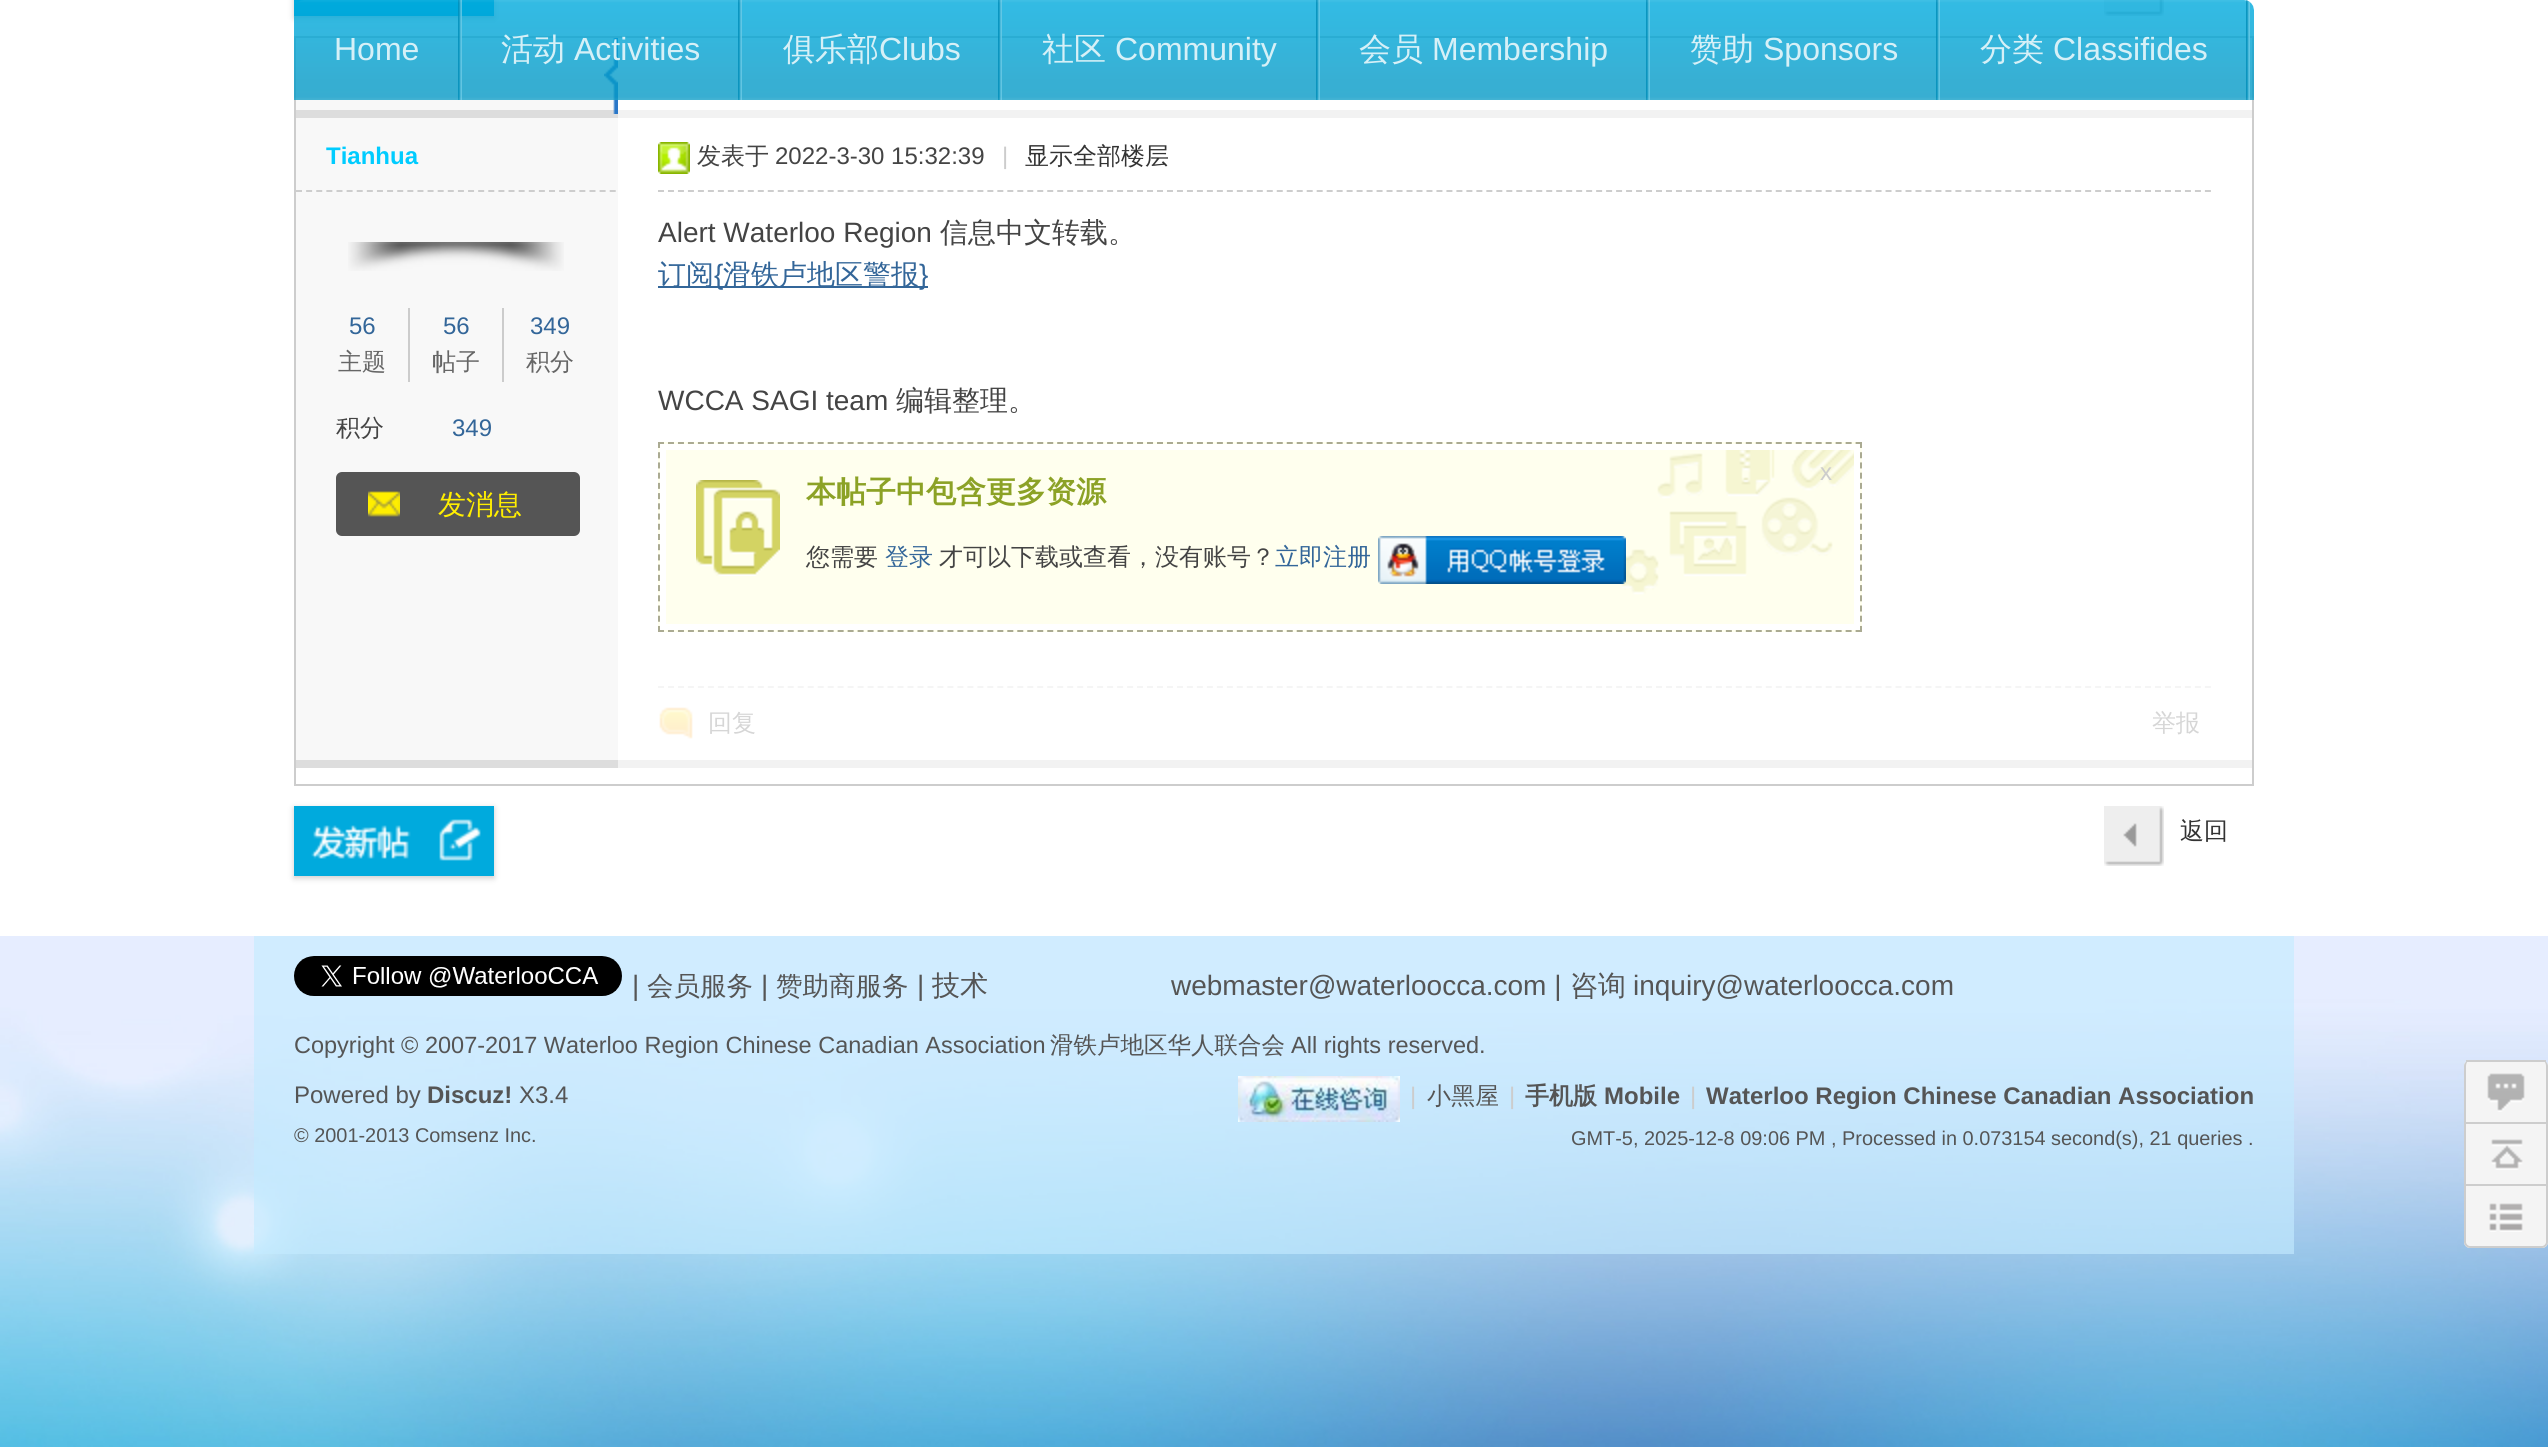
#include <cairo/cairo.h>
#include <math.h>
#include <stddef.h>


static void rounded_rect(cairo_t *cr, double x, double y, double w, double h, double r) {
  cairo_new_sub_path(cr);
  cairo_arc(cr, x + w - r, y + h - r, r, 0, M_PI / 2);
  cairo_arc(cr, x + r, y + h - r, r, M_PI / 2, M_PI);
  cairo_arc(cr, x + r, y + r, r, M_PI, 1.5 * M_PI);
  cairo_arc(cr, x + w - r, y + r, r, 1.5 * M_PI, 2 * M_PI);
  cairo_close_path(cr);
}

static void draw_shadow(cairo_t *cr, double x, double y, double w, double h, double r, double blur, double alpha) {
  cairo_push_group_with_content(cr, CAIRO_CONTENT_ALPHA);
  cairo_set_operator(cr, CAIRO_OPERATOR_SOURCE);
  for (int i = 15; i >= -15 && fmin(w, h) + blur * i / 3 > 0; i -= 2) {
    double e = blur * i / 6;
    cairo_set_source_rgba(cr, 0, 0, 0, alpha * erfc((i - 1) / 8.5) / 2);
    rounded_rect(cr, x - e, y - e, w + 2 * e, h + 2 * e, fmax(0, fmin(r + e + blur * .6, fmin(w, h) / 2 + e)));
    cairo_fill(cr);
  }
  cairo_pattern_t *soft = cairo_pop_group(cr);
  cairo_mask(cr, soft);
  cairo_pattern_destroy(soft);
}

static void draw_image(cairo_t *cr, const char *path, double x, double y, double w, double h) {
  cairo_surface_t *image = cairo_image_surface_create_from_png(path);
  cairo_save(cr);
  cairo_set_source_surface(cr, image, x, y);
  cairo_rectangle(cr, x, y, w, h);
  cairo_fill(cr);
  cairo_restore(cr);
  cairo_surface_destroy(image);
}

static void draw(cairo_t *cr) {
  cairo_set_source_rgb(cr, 1, 1, 1);
  cairo_paint(cr);
  cairo_set_source_rgb(cr, 204 / 255.0, 204 / 255.0, 204 / 255.0);
  draw_shadow(cr, 294, -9, 200, 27, 0, 3, 1);
  cairo_set_source_rgb(cr, 0, 170 / 255.0, 221 / 255.0);
  cairo_rectangle(cr, 294, 0, 200, 16);
  cairo_fill(cr);
  draw_image(cr, "images/5.png", 2104, 0, 60, 16);
  cairo_rectangle(cr, 295, 37, 1958, 748);
  cairo_set_source_rgb(cr, 205 / 255.0, 205 / 255.0, 205 / 255.0);
  cairo_stroke(cr);
  cairo_set_source_rgb(cr, 248 / 255.0, 248 / 255.0, 248 / 255.0);
  cairo_rectangle(cr, 296, 38, 319, 72);
  cairo_fill(cr);
  cairo_set_source_rgb(cr, 221 / 255.0, 221 / 255.0, 221 / 255.0);
  cairo_rectangle(cr, 296, 110, 322, 8);
  cairo_fill(cr);
  draw_image(cr, "images/6.png", 604, 38, 14, 76);
  draw_image(cr, "images/1.png", 294, 0, 1960, 100);
  draw_image(cr, "images/2.png", 458, 0, 4, 100);
  draw_image(cr, "images/3.png", 738, 0, 4, 100);
  draw_image(cr, "images/3.png", 998, 0, 4, 100);
  draw_image(cr, "images/3.png", 1316, 0, 4, 100);
  draw_image(cr, "images/3.png", 1646, 0, 4, 100);
  draw_image(cr, "images/3.png", 1936, 0, 4, 100);
  draw_image(cr, "images/4.png", 2246, 0, 4, 100);
  cairo_set_source_rgb(cr, 242 / 255.0, 242 / 255.0, 242 / 255.0);
  cairo_rectangle(cr, 618, 110, 1634, 8);
  cairo_fill(cr);
  cairo_set_source_rgb(cr, 248 / 255.0, 248 / 255.0, 248 / 255.0);
  cairo_rectangle(cr, 296, 118, 322, 642);
  cairo_fill(cr);
  cairo_new_path(cr);
  cairo_move_to(cr, 296, 191);
  cairo_line_to(cr, 616, 191);
  cairo_set_source_rgb(cr, 205 / 255.0, 205 / 255.0, 205 / 255.0);
  cairo_set_dash(cr, (double[]){6, 4.12}, 2, 0);
  cairo_stroke(cr);
  draw_image(cr, "images/7.png", 348, 242, 216, 29);
  cairo_set_source_rgb(cr, 204 / 255.0, 204 / 255.0, 204 / 255.0);
  cairo_rectangle(cr, 408, 308, 2, 74);
  cairo_fill(cr);
  cairo_rectangle(cr, 502, 308, 2, 74);
  cairo_fill(cr);
  cairo_set_source_rgb(cr, 85 / 255.0, 85 / 255.0, 85 / 255.0);
  rounded_rect(cr, 337, 473, 242, 62, 5);
  cairo_fill_preserve(cr);
  cairo_set_dash(cr, NULL, 0, 0);
  cairo_stroke(cr);
  draw_image(cr, "images/8.png", 368, 491, 32, 26);
  cairo_new_path(cr);
  cairo_move_to(cr, 658, 191);
  cairo_line_to(cr, 2212, 191);
  cairo_set_source_rgb(cr, 205 / 255.0, 205 / 255.0, 205 / 255.0);
  cairo_set_dash(cr, (double[]){6, 3.98}, 2, 0);
  cairo_stroke(cr);
  draw_image(cr, "images/9.png", 658, 142, 32, 32);
  cairo_set_source_rgb(cr, 51 / 255.0, 102 / 255.0, 153 / 255.0);
  cairo_rectangle(cr, 658, 286, 270, 2);
  cairo_fill(cr);
  cairo_set_source_rgb(cr, 1, 1, 238 / 255.0);
  cairo_rectangle(cr, 658, 442, 1204, 190);
  cairo_fill(cr);
  draw_image(cr, "images/10.png", 1617, 450, 237, 145);
  cairo_new_path(cr);
  cairo_move_to(cr, 658, 443);
  cairo_line_to(cr, 1862, 443);
  cairo_set_source_rgb(cr, 170 / 255.0, 170 / 255.0, 146 / 255.0);
  cairo_stroke(cr);
  cairo_new_path(cr);
  cairo_move_to(cr, 1861, 442);
  cairo_line_to(cr, 1861, 632);
  cairo_set_dash(cr, (double[]){6, 4.22}, 2, 0);
  cairo_stroke(cr);
  cairo_new_path(cr);
  cairo_move_to(cr, 658, 631);
  cairo_line_to(cr, 1862, 631);
  cairo_set_dash(cr, (double[]){6, 3.98}, 2, 0);
  cairo_stroke(cr);
  cairo_new_path(cr);
  cairo_move_to(cr, 659, 442);
  cairo_line_to(cr, 659, 632);
  cairo_set_dash(cr, (double[]){6, 4.22}, 2, 0);
  cairo_stroke(cr);
  draw_image(cr, "images/11.png", 696, 480, 84, 96);
  cairo_rectangle(cr, 663, 447, 1194, 180);
  cairo_set_source_rgb(cr, 1, 1, 1);
  cairo_set_line_width(cr, 6);
  cairo_set_dash(cr, NULL, 0, 0);
  cairo_stroke(cr);
  draw_image(cr, "images/12.png", 1378, 536, 248, 48);
  cairo_new_path(cr);
  cairo_move_to(cr, 658, 687);
  cairo_line_to(cr, 2212, 687);
  cairo_set_source_rgb(cr, 245 / 255.0, 245 / 255.0, 245 / 255.0);
  cairo_set_line_width(cr, 2);
  cairo_set_dash(cr, (double[]){6, 3.98}, 2, 0);
  cairo_stroke(cr);
  draw_image(cr, "images/13.png", 659, 707, 34, 32);
  cairo_set_source_rgb(cr, 221 / 255.0, 221 / 255.0, 221 / 255.0);
  cairo_rectangle(cr, 296, 760, 322, 8);
  cairo_fill(cr);
  cairo_set_source_rgb(cr, 242 / 255.0, 242 / 255.0, 242 / 255.0);
  cairo_rectangle(cr, 618, 760, 1634, 8);
  cairo_fill(cr);
  cairo_set_source_rgb(cr, 204 / 255.0, 204 / 255.0, 204 / 255.0);
  draw_shadow(cr, 294, 808, 200, 70, 0, 3, 1);
  draw_image(cr, "images/14.png", 294, 806, 200, 70);
  draw_image(cr, "images/15.png", 2104, 806, 60, 60);
  draw_image(cr, "images/16.png", 0, 936, 2548, 511);
  cairo_set_source_rgba(cr, 196 / 255.0, 234 / 255.0, 1, 0.64);
  cairo_rectangle(cr, 254, 936, 2040, 318);
  cairo_fill(cr);
  draw_image(cr, "images/17.png", 294, 956, 328, 40);
  draw_image(cr, "images/18.png", 1238, 1076, 162, 46);
  cairo_set_source_rgb(cr, 244 / 255.0, 244 / 255.0, 244 / 255.0);
  rounded_rect(cr, 2464, 1060, 84, 188, 6);
  cairo_fill(cr);
  cairo_set_source_rgb(cr, 205 / 255.0, 205 / 255.0, 205 / 255.0);
  cairo_set_fill_rule(cr, CAIRO_FILL_RULE_EVEN_ODD);
  cairo_new_path(cr);
  cairo_move_to(cr, 2470, 1060);
  cairo_line_to(cr, 2542, 1060);
  cairo_curve_to(cr, 2545, 1060, 2548, 1063, 2548, 1066);
  cairo_line_to(cr, 2548, 1242);
  cairo_curve_to(cr, 2548, 1245, 2545, 1248, 2542, 1248);
  cairo_line_to(cr, 2470, 1248);
  cairo_curve_to(cr, 2467, 1248, 2464, 1245, 2464, 1242);
  cairo_line_to(cr, 2464, 1066);
  cairo_curve_to(cr, 2464, 1063, 2467, 1060, 2470, 1060);
  cairo_close_path(cr);
  cairo_move_to(cr, 2470, 1060);
  cairo_line_to(cr, 2542, 1060);
  cairo_curve_to(cr, 2544, 1060, 2546, 1063, 2546, 1066);
  cairo_line_to(cr, 2546, 1242);
  cairo_curve_to(cr, 2546, 1244, 2544, 1246, 2542, 1246);
  cairo_line_to(cr, 2470, 1246);
  cairo_curve_to(cr, 2468, 1246, 2466, 1244, 2466, 1242);
  cairo_line_to(cr, 2466, 1066);
  cairo_curve_to(cr, 2466, 1063, 2468, 1060, 2470, 1060);
  cairo_close_path(cr);
  cairo_fill(cr);
  draw_image(cr, "images/19.png", 2487, 1073, 38, 39);
  cairo_rectangle(cr, 2466, 1060, 80, 2);
  cairo_fill(cr);
  draw_image(cr, "images/20.png", 2491, 1139, 32, 31);
  cairo_rectangle(cr, 2466, 1122, 80, 2);
  cairo_fill(cr);
  draw_image(cr, "images/21.png", 2489, 1203, 34, 29);
  cairo_rectangle(cr, 2466, 1184, 80, 2);
  cairo_fill(cr);
  cairo_select_font_face(cr, "Liberation Sans", CAIRO_FONT_SLANT_NORMAL, CAIRO_FONT_WEIGHT_NORMAL);
  cairo_set_font_size(cr, 32);
  cairo_set_source_rgb(cr, 214 / 255.0, 240 / 255.0, 247 / 255.0);
  cairo_move_to(cr, 334, 60);
  cairo_show_text(cr, "Home");
  cairo_select_font_face(cr, "WenQuanYi Zen Hei Medium", CAIRO_FONT_SLANT_NORMAL, CAIRO_FONT_WEIGHT_NORMAL);
  cairo_move_to(cr, 501, 60);
  cairo_show_text(cr, "活动");
  cairo_select_font_face(cr, "Liberation Sans", CAIRO_FONT_SLANT_NORMAL, CAIRO_FONT_WEIGHT_NORMAL);
  cairo_move_to(cr, 574, 60);
  cairo_show_text(cr, "Activities");
  cairo_select_font_face(cr, "WenQuanYi Zen Hei Medium", CAIRO_FONT_SLANT_NORMAL, CAIRO_FONT_WEIGHT_NORMAL);
  cairo_move_to(cr, 783, 60);
  cairo_show_text(cr, "俱乐部");
  cairo_select_font_face(cr, "Liberation Sans", CAIRO_FONT_SLANT_NORMAL, CAIRO_FONT_WEIGHT_NORMAL);
  cairo_move_to(cr, 879, 60);
  cairo_show_text(cr, "Clubs");
  cairo_select_font_face(cr, "WenQuanYi Zen Hei Medium", CAIRO_FONT_SLANT_NORMAL, CAIRO_FONT_WEIGHT_NORMAL);
  cairo_move_to(cr, 1042, 60);
  cairo_show_text(cr, "社区");
  cairo_select_font_face(cr, "Liberation Sans", CAIRO_FONT_SLANT_NORMAL, CAIRO_FONT_WEIGHT_NORMAL);
  cairo_move_to(cr, 1115, 60);
  cairo_show_text(cr, "Community");
  cairo_select_font_face(cr, "WenQuanYi Zen Hei Medium", CAIRO_FONT_SLANT_NORMAL, CAIRO_FONT_WEIGHT_NORMAL);
  cairo_move_to(cr, 1359, 60);
  cairo_show_text(cr, "会员");
  cairo_select_font_face(cr, "Liberation Sans", CAIRO_FONT_SLANT_NORMAL, CAIRO_FONT_WEIGHT_NORMAL);
  cairo_move_to(cr, 1432, 60);
  cairo_show_text(cr, "Membership");
  cairo_select_font_face(cr, "WenQuanYi Zen Hei Medium", CAIRO_FONT_SLANT_NORMAL, CAIRO_FONT_WEIGHT_NORMAL);
  cairo_move_to(cr, 1690, 60);
  cairo_show_text(cr, "赞助");
  cairo_select_font_face(cr, "Liberation Sans", CAIRO_FONT_SLANT_NORMAL, CAIRO_FONT_WEIGHT_NORMAL);
  cairo_move_to(cr, 1763, 60);
  cairo_show_text(cr, "Sponsors");
  cairo_select_font_face(cr, "WenQuanYi Zen Hei Medium", CAIRO_FONT_SLANT_NORMAL, CAIRO_FONT_WEIGHT_NORMAL);
  cairo_move_to(cr, 1980, 60);
  cairo_show_text(cr, "分类");
  cairo_select_font_face(cr, "Liberation Sans", CAIRO_FONT_SLANT_NORMAL, CAIRO_FONT_WEIGHT_NORMAL);
  cairo_move_to(cr, 2053, 60);
  cairo_show_text(cr, "Classifides");
  cairo_select_font_face(cr, "Liberation Sans", CAIRO_FONT_SLANT_NORMAL, CAIRO_FONT_WEIGHT_BOLD);
  cairo_set_font_size(cr, 24);
  cairo_set_source_rgb(cr, 0, 204 / 255.0, 1);
  cairo_move_to(cr, 326, 164);
  cairo_show_text(cr, "Tianhua");
  cairo_select_font_face(cr, "Liberation Sans", CAIRO_FONT_SLANT_NORMAL, CAIRO_FONT_WEIGHT_NORMAL);
  cairo_set_source_rgb(cr, 51 / 255.0, 102 / 255.0, 153 / 255.0);
  cairo_move_to(cr, 349, 334);
  cairo_show_text(cr, "56");
  cairo_select_font_face(cr, "WenQuanYi Zen Hei Medium", CAIRO_FONT_SLANT_NORMAL, CAIRO_FONT_WEIGHT_NORMAL);
  cairo_set_source_rgb(cr, 102 / 255.0, 102 / 255.0, 102 / 255.0);
  cairo_move_to(cr, 338, 370);
  cairo_show_text(cr, "主题");
  cairo_select_font_face(cr, "Liberation Sans", CAIRO_FONT_SLANT_NORMAL, CAIRO_FONT_WEIGHT_NORMAL);
  cairo_set_source_rgb(cr, 51 / 255.0, 102 / 255.0, 153 / 255.0);
  cairo_move_to(cr, 443, 334);
  cairo_show_text(cr, "56");
  cairo_select_font_face(cr, "WenQuanYi Zen Hei Medium", CAIRO_FONT_SLANT_NORMAL, CAIRO_FONT_WEIGHT_NORMAL);
  cairo_set_source_rgb(cr, 102 / 255.0, 102 / 255.0, 102 / 255.0);
  cairo_move_to(cr, 432, 370);
  cairo_show_text(cr, "帖子");
  cairo_select_font_face(cr, "Liberation Sans", CAIRO_FONT_SLANT_NORMAL, CAIRO_FONT_WEIGHT_NORMAL);
  cairo_set_source_rgb(cr, 51 / 255.0, 102 / 255.0, 153 / 255.0);
  cairo_move_to(cr, 530, 334);
  cairo_show_text(cr, "349");
  cairo_select_font_face(cr, "WenQuanYi Zen Hei Medium", CAIRO_FONT_SLANT_NORMAL, CAIRO_FONT_WEIGHT_NORMAL);
  cairo_set_source_rgb(cr, 102 / 255.0, 102 / 255.0, 102 / 255.0);
  cairo_move_to(cr, 526, 370);
  cairo_show_text(cr, "积分");
  cairo_set_source_rgb(cr, 68 / 255.0, 68 / 255.0, 68 / 255.0);
  cairo_move_to(cr, 336, 436);
  cairo_show_text(cr, "积分");
  cairo_select_font_face(cr, "Liberation Sans", CAIRO_FONT_SLANT_NORMAL, CAIRO_FONT_WEIGHT_NORMAL);
  cairo_set_source_rgb(cr, 51 / 255.0, 102 / 255.0, 153 / 255.0);
  cairo_move_to(cr, 452, 436);
  cairo_show_text(cr, "349");
  cairo_select_font_face(cr, "WenQuanYi Zen Hei Medium", CAIRO_FONT_SLANT_NORMAL, CAIRO_FONT_WEIGHT_NORMAL);
  cairo_set_font_size(cr, 28);
  cairo_set_source_rgb(cr, 1, 238 / 255.0, 0);
  cairo_move_to(cr, 438, 514);
  cairo_show_text(cr, "发消息");
  cairo_set_font_size(cr, 24);
  cairo_set_source_rgb(cr, 68 / 255.0, 68 / 255.0, 68 / 255.0);
  cairo_move_to(cr, 697, 164);
  cairo_show_text(cr, "发表于");
  cairo_select_font_face(cr, "Liberation Sans", CAIRO_FONT_SLANT_NORMAL, CAIRO_FONT_WEIGHT_NORMAL);
  cairo_move_to(cr, 775, 164);
  cairo_show_text(cr, "2022-3-30 15:32:39");
  cairo_set_source_rgb(cr, 204 / 255.0, 204 / 255.0, 204 / 255.0);
  cairo_move_to(cr, 1002, 164);
  cairo_show_text(cr, "|");
  cairo_select_font_face(cr, "WenQuanYi Zen Hei Medium", CAIRO_FONT_SLANT_NORMAL, CAIRO_FONT_WEIGHT_NORMAL);
  cairo_set_source_rgb(cr, 51 / 255.0, 51 / 255.0, 51 / 255.0);
  cairo_move_to(cr, 1025, 164);
  cairo_show_text(cr, "显示全部楼层");
  cairo_select_font_face(cr, "Liberation Sans", CAIRO_FONT_SLANT_NORMAL, CAIRO_FONT_WEIGHT_NORMAL);
  cairo_set_font_size(cr, 28);
  cairo_set_source_rgb(cr, 68 / 255.0, 68 / 255.0, 68 / 255.0);
  cairo_move_to(cr, 658, 242);
  cairo_show_text(cr, "Alert Waterloo Region");
  cairo_select_font_face(cr, "WenQuanYi Zen Hei Medium", CAIRO_FONT_SLANT_NORMAL, CAIRO_FONT_WEIGHT_NORMAL);
  cairo_move_to(cr, 940, 242);
  cairo_show_text(cr, "信息中文转载。");
  cairo_set_source_rgb(cr, 51 / 255.0, 102 / 255.0, 153 / 255.0);
  cairo_move_to(cr, 658, 284);
  cairo_show_text(cr, "订阅");
  cairo_select_font_face(cr, "Liberation Sans", CAIRO_FONT_SLANT_NORMAL, CAIRO_FONT_WEIGHT_NORMAL);
  cairo_move_to(cr, 714, 284);
  cairo_show_text(cr, "{");
  cairo_select_font_face(cr, "WenQuanYi Zen Hei Medium", CAIRO_FONT_SLANT_NORMAL, CAIRO_FONT_WEIGHT_NORMAL);
  cairo_move_to(cr, 723, 284);
  cairo_show_text(cr, "滑铁卢地区警报");
  cairo_select_font_face(cr, "Liberation Sans", CAIRO_FONT_SLANT_NORMAL, CAIRO_FONT_WEIGHT_NORMAL);
  cairo_move_to(cr, 919, 284);
  cairo_show_text(cr, "}");
  cairo_set_source_rgb(cr, 68 / 255.0, 68 / 255.0, 68 / 255.0);
  cairo_move_to(cr, 658, 410);
  cairo_show_text(cr, "WCCA SAGI team");
  cairo_select_font_face(cr, "WenQuanYi Zen Hei Medium", CAIRO_FONT_SLANT_NORMAL, CAIRO_FONT_WEIGHT_NORMAL);
  cairo_move_to(cr, 896, 410);
  cairo_show_text(cr, "编辑整理。");
  cairo_select_font_face(cr, "Liberation Sans", CAIRO_FONT_SLANT_NORMAL, CAIRO_FONT_WEIGHT_NORMAL);
  cairo_set_font_size(cr, 24);
  cairo_set_source_rgb(cr, 204 / 255.0, 204 / 255.0, 204 / 255.0);
  cairo_move_to(cr, 1820, 480);
  cairo_show_text(cr, "x");
  cairo_select_font_face(cr, "WenQuanYi Zen Hei", CAIRO_FONT_SLANT_NORMAL, CAIRO_FONT_WEIGHT_BOLD);
  cairo_set_font_size(cr, 30);
  cairo_set_source_rgb(cr, 140 / 255.0, 162 / 255.0, 38 / 255.0);
  cairo_move_to(cr, 806, 502);
  cairo_show_text(cr, "本帖子中包含更多资源");
  cairo_select_font_face(cr, "WenQuanYi Zen Hei Medium", CAIRO_FONT_SLANT_NORMAL, CAIRO_FONT_WEIGHT_NORMAL);
  cairo_set_font_size(cr, 24);
  cairo_set_source_rgb(cr, 68 / 255.0, 68 / 255.0, 68 / 255.0);
  cairo_move_to(cr, 806, 565);
  cairo_show_text(cr, "您需要");
  cairo_set_source_rgb(cr, 51 / 255.0, 102 / 255.0, 153 / 255.0);
  cairo_move_to(cr, 885, 565);
  cairo_show_text(cr, "登录");
  cairo_set_source_rgb(cr, 68 / 255.0, 68 / 255.0, 68 / 255.0);
  cairo_move_to(cr, 939, 565);
  cairo_show_text(cr, "才可以下载或查看，没有账号？");
  cairo_set_source_rgb(cr, 51 / 255.0, 102 / 255.0, 153 / 255.0);
  cairo_move_to(cr, 1275, 565);
  cairo_show_text(cr, "立即注册");
  cairo_set_source_rgb(cr, 214 / 255.0, 214 / 255.0, 214 / 255.0);
  cairo_move_to(cr, 708, 731);
  cairo_show_text(cr, "回复");
  cairo_move_to(cr, 2152, 731);
  cairo_show_text(cr, "举报");
  cairo_set_source_rgb(cr, 51 / 255.0, 51 / 255.0, 51 / 255.0);
  cairo_move_to(cr, 2180, 839);
  cairo_show_text(cr, "返回");
  cairo_select_font_face(cr, "Liberation Sans", CAIRO_FONT_SLANT_NORMAL, CAIRO_FONT_WEIGHT_NORMAL);
  cairo_set_font_size(cr, 28);
  cairo_set_source_rgb(cr, 85 / 255.0, 85 / 255.0, 85 / 255.0);
  cairo_move_to(cr, 632, 995);
  cairo_show_text(cr, "|");
  cairo_select_font_face(cr, "WenQuanYi Zen Hei Medium", CAIRO_FONT_SLANT_NORMAL, CAIRO_FONT_WEIGHT_NORMAL);
  cairo_set_font_size(cr, 26.5);
  cairo_move_to(cr, 647, 995);
  cairo_show_text(cr, "会员服务");
  cairo_select_font_face(cr, "Liberation Sans", CAIRO_FONT_SLANT_NORMAL, CAIRO_FONT_WEIGHT_NORMAL);
  cairo_set_font_size(cr, 28);
  cairo_move_to(cr, 761, 995);
  cairo_show_text(cr, "|");
  cairo_select_font_face(cr, "WenQuanYi Zen Hei Medium", CAIRO_FONT_SLANT_NORMAL, CAIRO_FONT_WEIGHT_NORMAL);
  cairo_set_font_size(cr, 26.5);
  cairo_move_to(cr, 776, 995);
  cairo_show_text(cr, "赞助商服务");
  cairo_select_font_face(cr, "Liberation Sans", CAIRO_FONT_SLANT_NORMAL, CAIRO_FONT_WEIGHT_NORMAL);
  cairo_set_font_size(cr, 28);
  cairo_move_to(cr, 917, 995);
  cairo_show_text(cr, "|");
  cairo_select_font_face(cr, "WenQuanYi Zen Hei Medium", CAIRO_FONT_SLANT_NORMAL, CAIRO_FONT_WEIGHT_NORMAL);
  cairo_move_to(cr, 932, 995);
  cairo_show_text(cr, "技术");
  cairo_select_font_face(cr, "Liberation Sans", CAIRO_FONT_SLANT_NORMAL, CAIRO_FONT_WEIGHT_NORMAL);
  cairo_move_to(cr, 1171, 995);
  cairo_show_text(cr, "webmaster@waterloocca.com |");
  cairo_select_font_face(cr, "WenQuanYi Zen Hei Medium", CAIRO_FONT_SLANT_NORMAL, CAIRO_FONT_WEIGHT_NORMAL);
  cairo_move_to(cr, 1570, 995);
  cairo_show_text(cr, "咨询");
  cairo_select_font_face(cr, "Liberation Sans", CAIRO_FONT_SLANT_NORMAL, CAIRO_FONT_WEIGHT_NORMAL);
  cairo_move_to(cr, 1633, 995);
  cairo_show_text(cr, "inquiry@waterloocca.com");
  cairo_set_font_size(cr, 23.5);
  cairo_move_to(cr, 294, 1053);
  cairo_show_text(cr, "Copyright © 2007-2017 Waterloo Region Chinese Canadian Association");
  cairo_select_font_face(cr, "WenQuanYi Zen Hei Medium", CAIRO_FONT_SLANT_NORMAL, CAIRO_FONT_WEIGHT_NORMAL);
  cairo_move_to(cr, 1050, 1053);
  cairo_show_text(cr, "滑铁卢地区华人联合会");
  cairo_select_font_face(cr, "Liberation Sans", CAIRO_FONT_SLANT_NORMAL, CAIRO_FONT_WEIGHT_NORMAL);
  cairo_move_to(cr, 1291, 1053);
  cairo_show_text(cr, "All rights reserved.");
  cairo_set_font_size(cr, 24);
  cairo_move_to(cr, 294, 1103);
  cairo_show_text(cr, "Powered by");
  cairo_select_font_face(cr, "Liberation Sans", CAIRO_FONT_SLANT_NORMAL, CAIRO_FONT_WEIGHT_BOLD);
  cairo_move_to(cr, 427, 1103);
  cairo_show_text(cr, "Discuz!");
  cairo_select_font_face(cr, "Liberation Sans", CAIRO_FONT_SLANT_NORMAL, CAIRO_FONT_WEIGHT_NORMAL);
  cairo_move_to(cr, 519, 1103);
  cairo_show_text(cr, "X3.4");
  cairo_set_font_size(cr, 19.9);
  cairo_move_to(cr, 294, 1142);
  cairo_show_text(cr, "© 2001-2013 Comsenz Inc.");
  cairo_set_font_size(cr, 24);
  cairo_set_source_rgb(cr, 204 / 255.0, 204 / 255.0, 204 / 255.0);
  cairo_move_to(cr, 1410, 1104);
  cairo_show_text(cr, "|");
  cairo_select_font_face(cr, "WenQuanYi Zen Hei Medium", CAIRO_FONT_SLANT_NORMAL, CAIRO_FONT_WEIGHT_NORMAL);
  cairo_set_source_rgb(cr, 85 / 255.0, 85 / 255.0, 85 / 255.0);
  cairo_move_to(cr, 1427, 1104);
  cairo_show_text(cr, "小黑屋");
  cairo_select_font_face(cr, "Liberation Sans", CAIRO_FONT_SLANT_NORMAL, CAIRO_FONT_WEIGHT_NORMAL);
  cairo_set_source_rgb(cr, 204 / 255.0, 204 / 255.0, 204 / 255.0);
  cairo_move_to(cr, 1509, 1104);
  cairo_show_text(cr, "|");
  cairo_select_font_face(cr, "WenQuanYi Zen Hei", CAIRO_FONT_SLANT_NORMAL, CAIRO_FONT_WEIGHT_BOLD);
  cairo_set_source_rgb(cr, 85 / 255.0, 85 / 255.0, 85 / 255.0);
  cairo_move_to(cr, 1525, 1104);
  cairo_show_text(cr, "手机版");
  cairo_select_font_face(cr, "Liberation Sans", CAIRO_FONT_SLANT_NORMAL, CAIRO_FONT_WEIGHT_BOLD);
  cairo_move_to(cr, 1604, 1104);
  cairo_show_text(cr, "Mobile");
  cairo_select_font_face(cr, "Liberation Sans", CAIRO_FONT_SLANT_NORMAL, CAIRO_FONT_WEIGHT_NORMAL);
  cairo_set_source_rgb(cr, 204 / 255.0, 204 / 255.0, 204 / 255.0);
  cairo_move_to(cr, 1690, 1104);
  cairo_show_text(cr, "|");
  cairo_select_font_face(cr, "Liberation Sans", CAIRO_FONT_SLANT_NORMAL, CAIRO_FONT_WEIGHT_BOLD);
  cairo_set_source_rgb(cr, 85 / 255.0, 85 / 255.0, 85 / 255.0);
  cairo_move_to(cr, 1706, 1104);
  cairo_show_text(cr, "Waterloo Region Chinese Canadian Association");
  cairo_select_font_face(cr, "Liberation Sans", CAIRO_FONT_SLANT_NORMAL, CAIRO_FONT_WEIGHT_NORMAL);
  cairo_set_font_size(cr, 19.9);
  cairo_move_to(cr, 1571, 1145);
  cairo_show_text(cr, "GMT-5, 2025-12-8 09:06 PM , Processed in 0.073154 second(s), 21 queries .");
}

int main(void) {
  cairo_surface_t *surface = cairo_image_surface_create(CAIRO_FORMAT_RGB24, 2548, 1447);
  cairo_t *cr = cairo_create(surface);
  cairo_font_options_t *options = cairo_font_options_create();
  cairo_font_options_set_hint_metrics(options, CAIRO_HINT_METRICS_OFF);
  cairo_font_options_set_hint_style(options, CAIRO_HINT_STYLE_NONE);
  cairo_set_font_options(cr, options);
  cairo_set_miter_limit(cr, 4);
  draw(cr);
  cairo_surface_write_to_png(surface, "out.png");
  cairo_font_options_destroy(options);
  cairo_destroy(cr);
  cairo_surface_destroy(surface);
  return 0;
}
